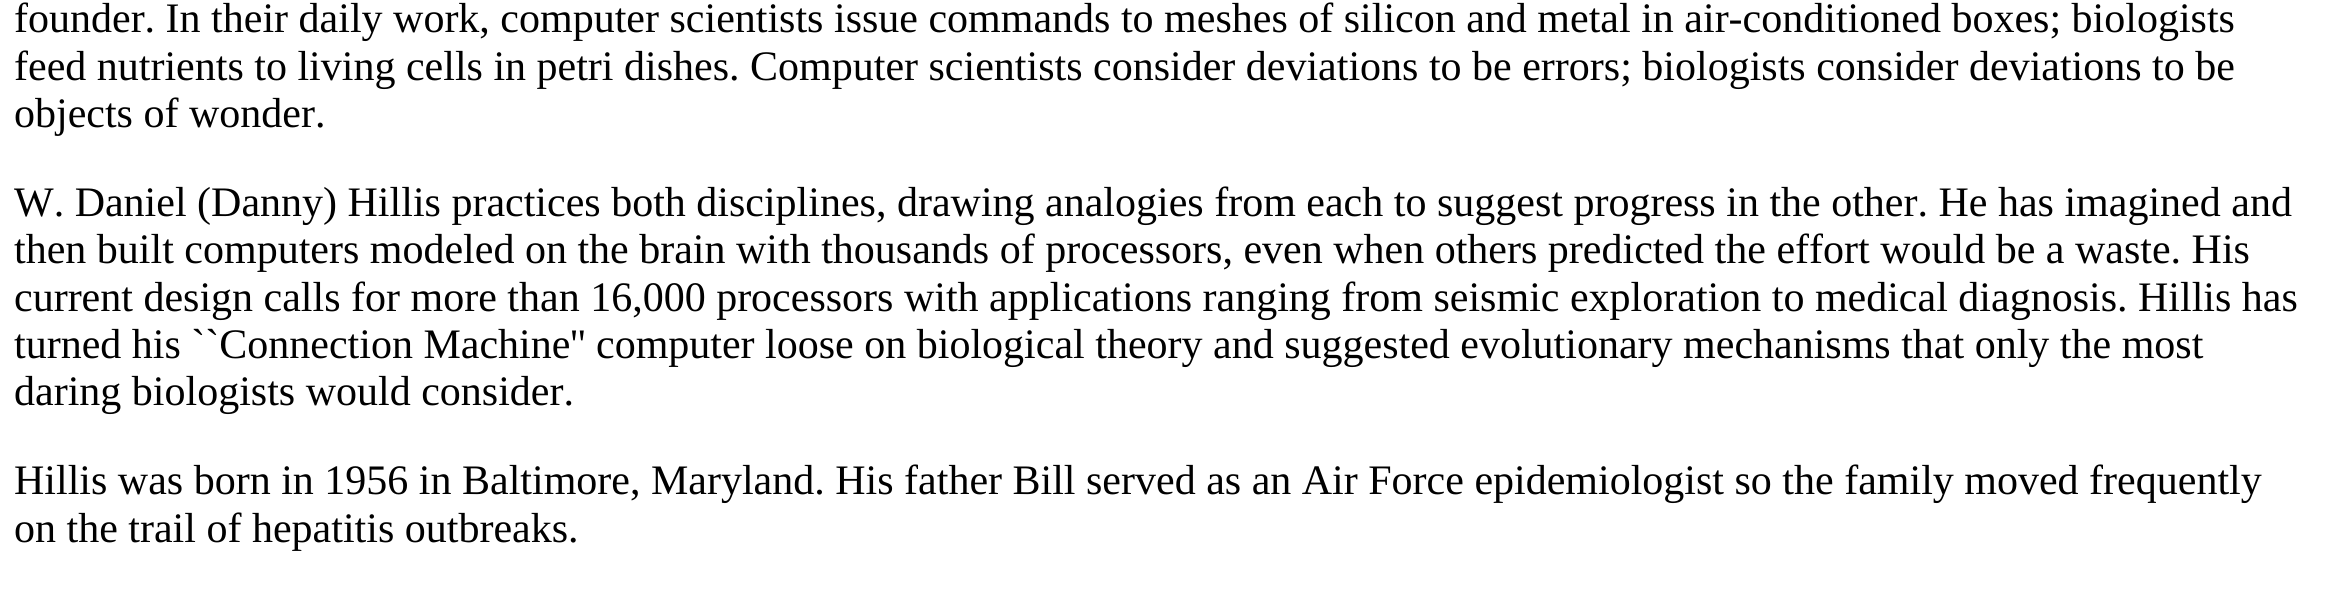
#include <cairo/cairo.h>
#include <math.h>
#include <stddef.h>


static void draw(cairo_t *cr) {
  cairo_set_source_rgb(cr, 1, 1, 1);
  cairo_paint(cr);
  cairo_select_font_face(cr, "Liberation Serif", CAIRO_FONT_SLANT_NORMAL, CAIRO_FONT_WEIGHT_NORMAL);
  cairo_set_font_size(cr, 42);
  cairo_set_source_rgb(cr, 0, 0, 0);
  cairo_move_to(cr, 14, 32);
  cairo_show_text(cr, "founder. In their daily work, computer scientists issue commands to meshes of silicon and metal in air-conditioned boxes; biologists");
  cairo_move_to(cr, 14, 80);
  cairo_show_text(cr, "feed nutrients to living cells in petri dishes. Computer scientists consider deviations to be errors; biologists consider deviations to be");
  cairo_move_to(cr, 14, 127);
  cairo_show_text(cr, "objects of wonder.");
  cairo_move_to(cr, 14, 216);
  cairo_show_text(cr, "W. Daniel (Danny) Hillis practices both disciplines, drawing analogies from each to suggest progress in the other. He has imagined and");
  cairo_move_to(cr, 14, 263);
  cairo_show_text(cr, "then built computers modeled on the brain with thousands of processors, even when others predicted the effort would be a waste. His");
  cairo_move_to(cr, 14, 311);
  cairo_show_text(cr, "current design calls for more than 16,000 processors with applications ranging from seismic exploration to medical diagnosis. Hillis has");
  cairo_move_to(cr, 14, 358);
  cairo_show_text(cr, "turned his ``Connection Machine'' computer loose on biological theory and suggested evolutionary mechanisms that only the most");
  cairo_move_to(cr, 14, 405);
  cairo_show_text(cr, "daring biologists would consider.");
  cairo_move_to(cr, 14, 494);
  cairo_show_text(cr, "Hillis was born in 1956 in Baltimore, Maryland. His father Bill served as an Air Force epidemiologist so the family moved frequently");
  cairo_move_to(cr, 14, 542);
  cairo_show_text(cr, "on the trail of hepatitis outbreaks.");
}

int main(void) {
  cairo_surface_t *surface = cairo_image_surface_create(CAIRO_FORMAT_RGB24, 2326, 607);
  cairo_t *cr = cairo_create(surface);
  cairo_font_options_t *options = cairo_font_options_create();
  cairo_font_options_set_hint_metrics(options, CAIRO_HINT_METRICS_OFF);
  cairo_font_options_set_hint_style(options, CAIRO_HINT_STYLE_NONE);
  cairo_set_font_options(cr, options);
  cairo_set_miter_limit(cr, 4);
  draw(cr);
  cairo_surface_write_to_png(surface, "out.png");
  cairo_font_options_destroy(options);
  cairo_destroy(cr);
  cairo_surface_destroy(surface);
  return 0;
}
